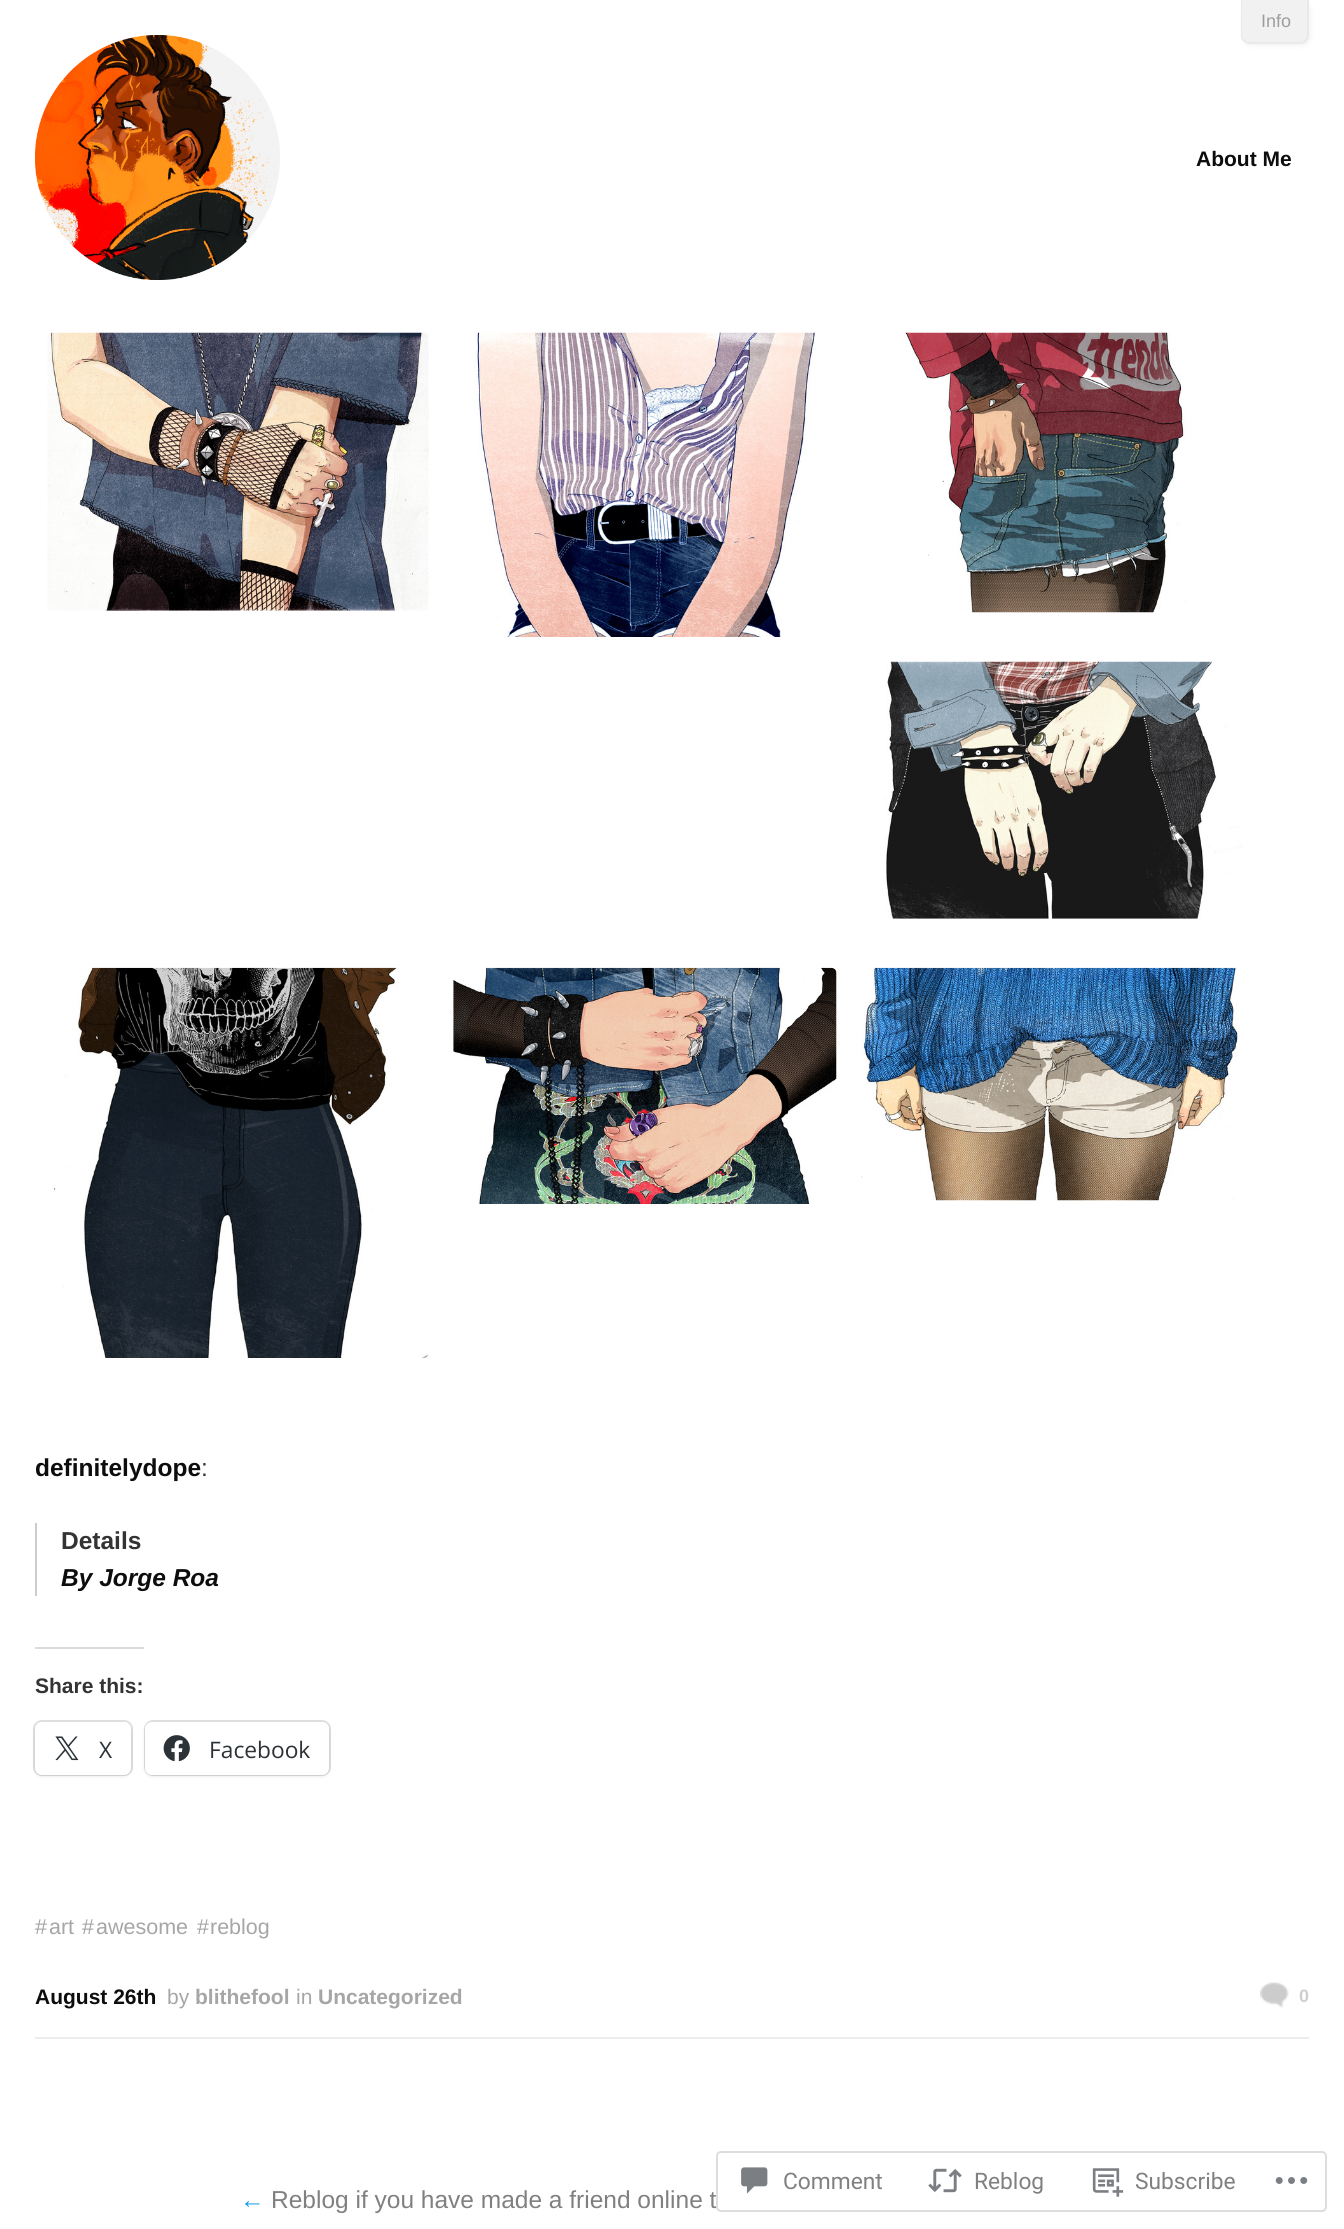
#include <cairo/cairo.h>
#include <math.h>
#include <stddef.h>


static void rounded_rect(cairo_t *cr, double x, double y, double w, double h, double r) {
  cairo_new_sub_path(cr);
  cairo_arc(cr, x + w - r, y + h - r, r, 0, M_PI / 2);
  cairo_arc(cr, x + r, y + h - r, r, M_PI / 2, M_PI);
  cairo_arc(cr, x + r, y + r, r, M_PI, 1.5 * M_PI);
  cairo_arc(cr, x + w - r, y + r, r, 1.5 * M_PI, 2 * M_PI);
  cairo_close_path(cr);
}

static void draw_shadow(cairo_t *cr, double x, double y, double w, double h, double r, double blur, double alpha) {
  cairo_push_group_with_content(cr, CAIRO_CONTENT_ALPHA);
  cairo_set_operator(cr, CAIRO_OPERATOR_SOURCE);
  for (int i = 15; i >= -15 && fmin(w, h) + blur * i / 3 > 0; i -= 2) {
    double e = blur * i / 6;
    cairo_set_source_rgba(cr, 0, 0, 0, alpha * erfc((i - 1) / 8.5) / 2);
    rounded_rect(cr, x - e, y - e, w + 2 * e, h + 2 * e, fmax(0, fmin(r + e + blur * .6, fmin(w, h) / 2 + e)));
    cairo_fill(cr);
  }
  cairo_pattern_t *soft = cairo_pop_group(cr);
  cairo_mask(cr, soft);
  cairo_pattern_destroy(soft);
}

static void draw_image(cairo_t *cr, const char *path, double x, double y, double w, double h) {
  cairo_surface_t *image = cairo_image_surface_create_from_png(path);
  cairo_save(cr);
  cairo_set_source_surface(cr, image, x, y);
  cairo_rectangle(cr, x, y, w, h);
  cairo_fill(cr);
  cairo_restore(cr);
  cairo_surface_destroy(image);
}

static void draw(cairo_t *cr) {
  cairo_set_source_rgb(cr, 1, 1, 1);
  cairo_paint(cr);
  cairo_set_source_rgb(cr, 0, 0, 0);
  draw_shadow(cr, 1243, 2, 68, 44, 9, 2.5, 0.05);
  cairo_set_source_rgb(cr, 241 / 255.0, 241 / 255.0, 241 / 255.0);
  cairo_new_path(cr);
  cairo_move_to(cr, 1241, 0);
  cairo_line_to(cr, 1309, 0);
  cairo_line_to(cr, 1309, 35);
  cairo_curve_to(cr, 1309, 40, 1305, 44, 1300, 44);
  cairo_line_to(cr, 1250, 44);
  cairo_curve_to(cr, 1245, 44, 1241, 40, 1241, 35);
  cairo_close_path(cr);
  cairo_fill(cr);
  cairo_set_source_rgb(cr, 233 / 255.0, 233 / 255.0, 233 / 255.0);
  cairo_set_fill_rule(cr, CAIRO_FILL_RULE_EVEN_ODD);
  cairo_new_path(cr);
  cairo_move_to(cr, 1241, 0);
  cairo_line_to(cr, 1309, 0);
  cairo_line_to(cr, 1309, 35);
  cairo_curve_to(cr, 1309, 40, 1305, 44, 1300, 44);
  cairo_line_to(cr, 1250, 44);
  cairo_curve_to(cr, 1245, 44, 1241, 40, 1241, 35);
  cairo_close_path(cr);
  cairo_move_to(cr, 1242, 0);
  cairo_line_to(cr, 1307, 0);
  cairo_line_to(cr, 1307, 35);
  cairo_curve_to(cr, 1307, 39, 1304, 42, 1300, 42);
  cairo_line_to(cr, 1250, 42);
  cairo_curve_to(cr, 1246, 42, 1242, 39, 1242, 35);
  cairo_close_path(cr);
  cairo_fill(cr);
  draw_image(cr, "images/1.png", 35, 35, 245, 245);
  cairo_set_source_rgb(cr, 236 / 255.0, 236 / 255.0, 236 / 255.0);
  cairo_rectangle(cr, 35, 2037, 1274, 2);
  cairo_fill(cr);
  draw_image(cr, "images/2.png", 47, 332, 382, 279);
  draw_image(cr, "images/3.png", 474, 332, 342, 305);
  draw_image(cr, "images/4.png", 904, 332, 283, 281);
  draw_image(cr, "images/5.png", 884, 661, 358, 258);
  draw_image(cr, "images/6.png", 51, 967, 378, 391);
  draw_image(cr, "images/7.png", 453, 967, 384, 237);
  draw_image(cr, "images/8.png", 861, 967, 377, 234);
  cairo_set_source_rgb(cr, 204 / 255.0, 204 / 255.0, 204 / 255.0);
  cairo_rectangle(cr, 35, 1523, 2, 73);
  cairo_fill(cr);
  cairo_set_source_rgb(cr, 220 / 255.0, 220 / 255.0, 222 / 255.0);
  cairo_rectangle(cr, 35, 1647, 109, 2);
  cairo_fill(cr);
  rounded_rect(cr, 34, 1721, 98, 54, 8);
  cairo_set_source_rgb(cr, 224 / 255.0, 224 / 255.0, 224 / 255.0);
  cairo_stroke(cr);
  cairo_set_source_rgb(cr, 0, 0, 0);
  draw_shadow(cr, 35, 1724, 96, 52, 7, 2, 0.12);
  cairo_set_source_rgb(cr, 1, 1, 1);
  rounded_rect(cr, 35, 1722, 96, 53, 7);
  cairo_fill(cr);
  draw_image(cr, "images/9.png", 55, 1736, 24, 25);
  rounded_rect(cr, 145, 1721, 185, 54, 8);
  cairo_set_source_rgb(cr, 224 / 255.0, 224 / 255.0, 224 / 255.0);
  cairo_stroke(cr);
  cairo_set_source_rgb(cr, 0, 0, 0);
  draw_shadow(cr, 145, 1724, 184, 52, 7, 2, 0.12);
  cairo_set_source_rgb(cr, 1, 1, 1);
  rounded_rect(cr, 145, 1722, 184, 53, 7);
  cairo_fill(cr);
  draw_image(cr, "images/10.png", 163, 1735, 27, 27);
  draw_image(cr, "images/11.png", 1260, 1982, 29, 26);
  cairo_select_font_face(cr, "Liberation Sans", CAIRO_FONT_SLANT_NORMAL, CAIRO_FONT_WEIGHT_NORMAL);
  cairo_set_font_size(cr, 18);
  cairo_set_source_rgb(cr, 157 / 255.0, 157 / 255.0, 157 / 255.0);
  cairo_move_to(cr, 1261, 27);
  cairo_show_text(cr, "Info");
  cairo_select_font_face(cr, "Liberation Sans", CAIRO_FONT_SLANT_NORMAL, CAIRO_FONT_WEIGHT_BOLD);
  cairo_set_font_size(cr, 21);
  cairo_set_source_rgb(cr, 13 / 255.0, 13 / 255.0, 13 / 255.0);
  cairo_move_to(cr, 1196, 166);
  cairo_show_text(cr, "About Me");
  cairo_set_font_size(cr, 24.5);
  cairo_move_to(cr, 35, 1476);
  cairo_show_text(cr, "definitelydope");
  cairo_select_font_face(cr, "Liberation Sans", CAIRO_FONT_SLANT_NORMAL, CAIRO_FONT_WEIGHT_NORMAL);
  cairo_set_source_rgb(cr, 51 / 255.0, 51 / 255.0, 51 / 255.0);
  cairo_move_to(cr, 201, 1476);
  cairo_show_text(cr, ":");
  cairo_select_font_face(cr, "Liberation Sans", CAIRO_FONT_SLANT_NORMAL, CAIRO_FONT_WEIGHT_BOLD);
  cairo_move_to(cr, 61, 1549);
  cairo_show_text(cr, "Details");
  cairo_select_font_face(cr, "Liberation Sans", CAIRO_FONT_SLANT_ITALIC, CAIRO_FONT_WEIGHT_BOLD);
  cairo_set_source_rgb(cr, 13 / 255.0, 13 / 255.0, 13 / 255.0);
  cairo_move_to(cr, 61, 1586);
  cairo_show_text(cr, "By Jorge Roa");
  cairo_select_font_face(cr, "Liberation Sans", CAIRO_FONT_SLANT_NORMAL, CAIRO_FONT_WEIGHT_BOLD);
  cairo_set_font_size(cr, 21);
  cairo_set_source_rgb(cr, 51 / 255.0, 51 / 255.0, 51 / 255.0);
  cairo_move_to(cr, 35, 1693);
  cairo_show_text(cr, "Share this:");
  cairo_select_font_face(cr, "Open Sans", CAIRO_FONT_SLANT_NORMAL, CAIRO_FONT_WEIGHT_NORMAL);
  cairo_set_font_size(cr, 22.75);
  cairo_set_source_rgb(cr, 44 / 255.0, 51 / 255.0, 56 / 255.0);
  cairo_move_to(cr, 99, 1758);
  cairo_show_text(cr, "X");
  cairo_move_to(cr, 209, 1758);
  cairo_show_text(cr, "Facebook");
  cairo_select_font_face(cr, "Liberation Sans", CAIRO_FONT_SLANT_NORMAL, CAIRO_FONT_WEIGHT_NORMAL);
  cairo_set_font_size(cr, 21.5);
  cairo_set_source_rgb(cr, 166 / 255.0, 166 / 255.0, 166 / 255.0);
  cairo_move_to(cr, 35, 1934);
  cairo_show_text(cr, "#");
  cairo_move_to(cr, 49, 1934);
  cairo_show_text(cr, "art");
  cairo_move_to(cr, 82, 1934);
  cairo_show_text(cr, "#");
  cairo_move_to(cr, 96, 1934);
  cairo_show_text(cr, "awesome");
  cairo_move_to(cr, 197, 1934);
  cairo_show_text(cr, "#");
  cairo_move_to(cr, 210, 1934);
  cairo_show_text(cr, "reblog");
  cairo_select_font_face(cr, "Liberation Sans", CAIRO_FONT_SLANT_NORMAL, CAIRO_FONT_WEIGHT_BOLD);
  cairo_set_font_size(cr, 21);
  cairo_set_source_rgb(cr, 13 / 255.0, 13 / 255.0, 13 / 255.0);
  cairo_move_to(cr, 35, 2004);
  cairo_show_text(cr, "August 26th");
  cairo_select_font_face(cr, "Liberation Sans", CAIRO_FONT_SLANT_NORMAL, CAIRO_FONT_WEIGHT_NORMAL);
  cairo_set_source_rgb(cr, 166 / 255.0, 166 / 255.0, 166 / 255.0);
  cairo_move_to(cr, 167, 2004);
  cairo_show_text(cr, "by");
  cairo_select_font_face(cr, "Liberation Sans", CAIRO_FONT_SLANT_NORMAL, CAIRO_FONT_WEIGHT_BOLD);
  cairo_move_to(cr, 195, 2004);
  cairo_show_text(cr, "blithefool");
  cairo_select_font_face(cr, "Liberation Sans", CAIRO_FONT_SLANT_NORMAL, CAIRO_FONT_WEIGHT_NORMAL);
  cairo_move_to(cr, 296, 2004);
  cairo_show_text(cr, "in");
  cairo_select_font_face(cr, "Liberation Sans", CAIRO_FONT_SLANT_NORMAL, CAIRO_FONT_WEIGHT_BOLD);
  cairo_move_to(cr, 318, 2004);
  cairo_show_text(cr, "Uncategorized");
  cairo_set_font_size(cr, 18);
  cairo_set_source_rgb(cr, 207 / 255.0, 207 / 255.0, 207 / 255.0);
  cairo_move_to(cr, 1299, 2002);
  cairo_show_text(cr, "0");
  cairo_select_font_face(cr, "Liberation Sans", CAIRO_FONT_SLANT_NORMAL, CAIRO_FONT_WEIGHT_NORMAL);
  cairo_set_font_size(cr, 24.5);
  cairo_set_source_rgb(cr, 20 / 255.0, 158 / 255.0, 231 / 255.0);
  cairo_move_to(cr, 240, 2208);
  cairo_show_text(cr, "←");
  cairo_set_source_rgb(cr, 128 / 255.0, 128 / 255.0, 128 / 255.0);
  cairo_move_to(cr, 271, 2208);
  cairo_show_text(cr, "Reblog if you have made a friend online t");
  cairo_set_source_rgba(cr, 1, 1, 1, 0.98);
  rounded_rect(cr, 716, 2151, 611, 61, 5);
  cairo_fill(cr);
  rounded_rect(cr, 717, 2152, 609, 59, 4);
  cairo_set_source_rgba(cr, 220 / 255.0, 220 / 255.0, 222 / 255.0, 0.98);
  cairo_stroke(cr);
  draw_image(cr, "images/12.png", 741, 2167, 27, 27);
  cairo_select_font_face(cr, "Roboto", CAIRO_FONT_SLANT_NORMAL, CAIRO_FONT_WEIGHT_NORMAL);
  cairo_set_font_size(cr, 22.75);
  cairo_set_source_rgb(cr, 128 / 255.0, 128 / 255.0, 128 / 255.0);
  cairo_move_to(cr, 783, 2189);
  cairo_show_text(cr, "Comment");
  draw_image(cr, "images/13.png", 928, 2168, 34, 25);
  cairo_move_to(cr, 974, 2189);
  cairo_show_text(cr, "Reblog");
  draw_image(cr, "images/14.png", 1092, 2168, 32, 29);
  cairo_move_to(cr, 1135, 2189);
  cairo_show_text(cr, "Subscribe");
  draw_image(cr, "images/15.png", 1275, 2177, 33, 7);
}

int main(void) {
  cairo_surface_t *surface = cairo_image_surface_create(CAIRO_FORMAT_RGB24, 1344, 2229);
  cairo_t *cr = cairo_create(surface);
  cairo_font_options_t *options = cairo_font_options_create();
  cairo_font_options_set_hint_metrics(options, CAIRO_HINT_METRICS_OFF);
  cairo_font_options_set_hint_style(options, CAIRO_HINT_STYLE_NONE);
  cairo_set_font_options(cr, options);
  cairo_set_miter_limit(cr, 4);
  draw(cr);
  cairo_surface_write_to_png(surface, "out.png");
  cairo_font_options_destroy(options);
  cairo_destroy(cr);
  cairo_surface_destroy(surface);
  return 0;
}
